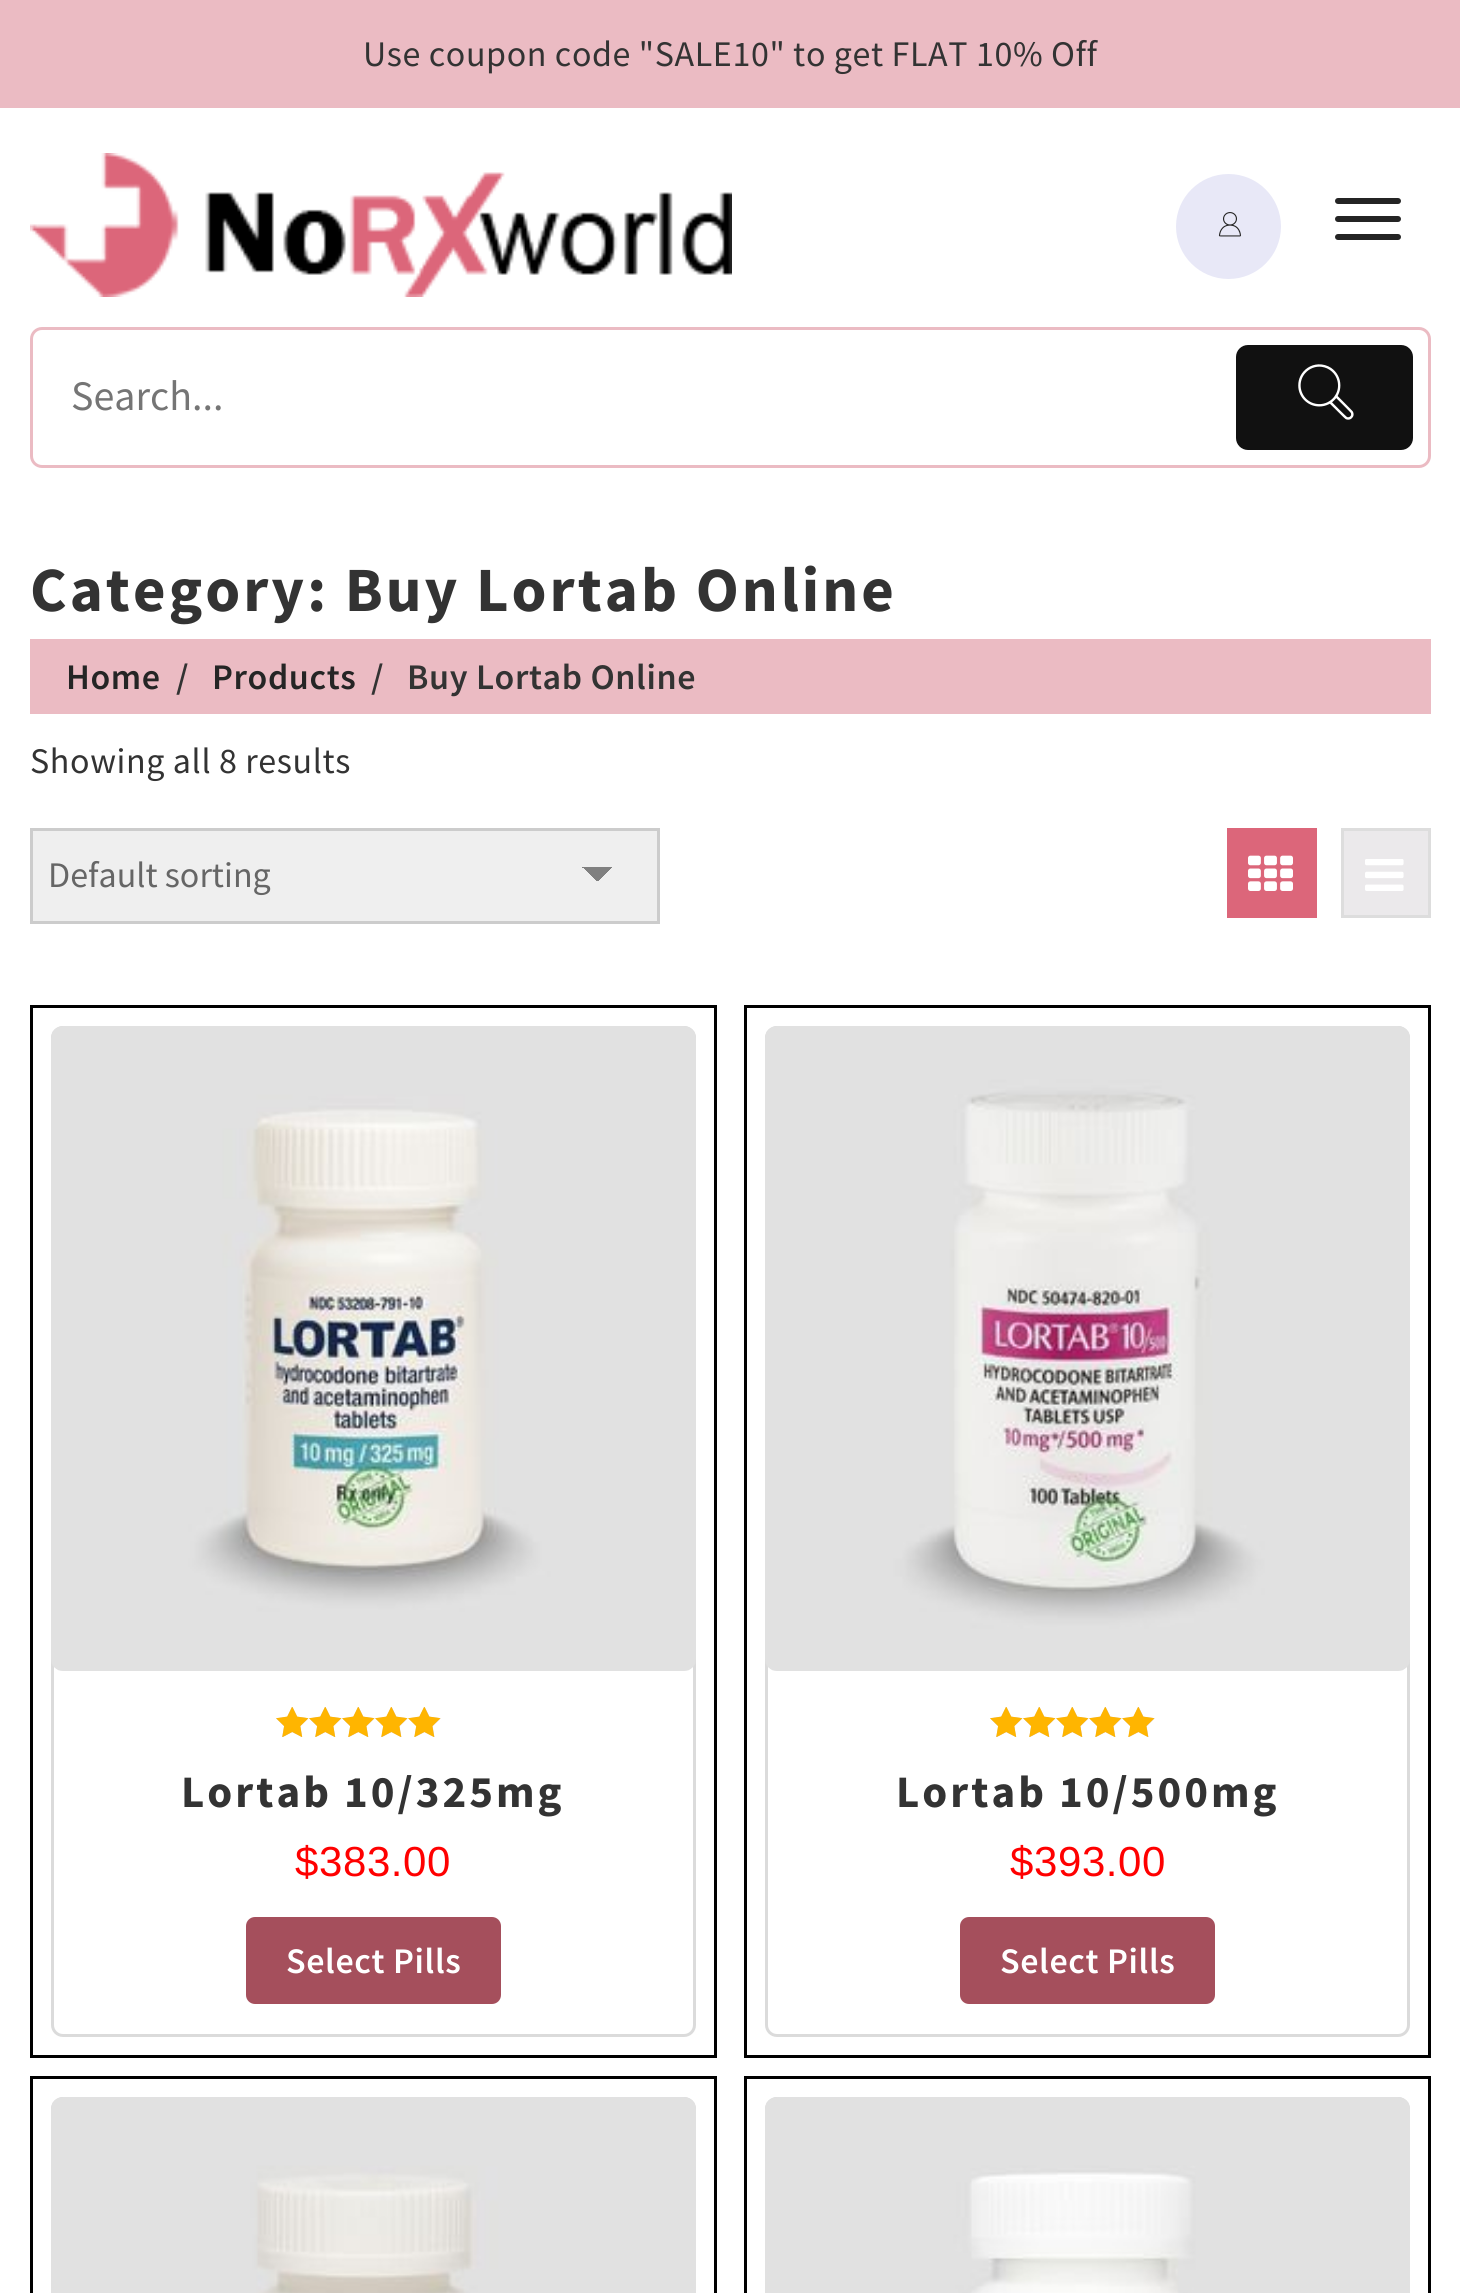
#include <cairo/cairo.h>
#include <math.h>
#include <stddef.h>


static void draw_spaced(cairo_t *cr, double x, double y, const char *s, double letter, double word) {
  cairo_move_to(cr, x, y);
  while (*s) {
    char ch[5] = {0};
    int n = 0;
    do ch[n++] = *s++; while ((*s & 0xC0) == 0x80);
    cairo_show_text(cr, ch);
    cairo_rel_move_to(cr, letter + word * (*ch == ' '), 0);
  }
}

static void rounded_rect(cairo_t *cr, double x, double y, double w, double h, double r) {
  cairo_new_sub_path(cr);
  cairo_arc(cr, x + w - r, y + h - r, r, 0, M_PI / 2);
  cairo_arc(cr, x + r, y + h - r, r, M_PI / 2, M_PI);
  cairo_arc(cr, x + r, y + r, r, M_PI, 1.5 * M_PI);
  cairo_arc(cr, x + w - r, y + r, r, 1.5 * M_PI, 2 * M_PI);
  cairo_close_path(cr);
}

static void draw_image(cairo_t *cr, const char *path, double x, double y, double w, double h) {
  cairo_surface_t *image = cairo_image_surface_create_from_png(path);
  cairo_save(cr);
  cairo_set_source_surface(cr, image, x, y);
  cairo_rectangle(cr, x, y, w, h);
  cairo_fill(cr);
  cairo_restore(cr);
  cairo_surface_destroy(image);
}

static void draw(cairo_t *cr) {
  cairo_pattern_t *gradient;
  cairo_set_source_rgb(cr, 1, 1, 1);
  cairo_paint(cr);
  cairo_set_source_rgb(cr, 235 / 255.0, 187 / 255.0, 195 / 255.0);
  cairo_rectangle(cr, 0, 0, 1460, 108);
  cairo_fill(cr);
  draw_image(cr, "images/1.png", 30, 153, 702, 144);
  cairo_set_source_rgb(cr, 232 / 255.0, 232 / 255.0, 247 / 255.0);
  cairo_arc(cr, 1228.5, 226.5, 52.5, 0, 2 * M_PI);
  cairo_fill(cr);
  draw_image(cr, "images/2.png", 1218, 212, 23, 25);
  cairo_set_source_rgb(cr, 36 / 255.0, 36 / 255.0, 36 / 255.0);
  rounded_rect(cr, 1335, 198, 66, 6, 3);
  cairo_fill(cr);
  rounded_rect(cr, 1335, 216, 66, 6, 3);
  cairo_fill(cr);
  rounded_rect(cr, 1335, 234, 66, 6, 3);
  cairo_fill(cr);
  rounded_rect(cr, 31.5, 328.5, 1398, 138, 10.5);
  cairo_set_source_rgb(cr, 235 / 255.0, 187 / 255.0, 195 / 255.0);
  cairo_set_line_width(cr, 3);
  cairo_stroke(cr);
  cairo_set_source_rgb(cr, 17 / 255.0, 17 / 255.0, 17 / 255.0);
  rounded_rect(cr, 1236, 345, 177, 105, 12);
  cairo_fill(cr);
  draw_image(cr, "images/3.png", 1298, 364, 56, 56);
  cairo_set_source_rgb(cr, 235 / 255.0, 187 / 255.0, 195 / 255.0);
  cairo_rectangle(cr, 30, 639, 1401, 75);
  cairo_fill(cr);
  cairo_set_source_rgb(cr, 239 / 255.0, 239 / 255.0, 239 / 255.0);
  cairo_rectangle(cr, 33, 831, 624, 90);
  cairo_fill(cr);
  gradient = cairo_pattern_create_linear(597, 867, 612, 882);
  cairo_pattern_add_color_stop_rgba(gradient, 0.5, 128 / 255.0, 128 / 255.0, 128 / 255.0, 1);
  cairo_pattern_add_color_stop_rgba(gradient, 0.5, 239 / 255.0, 239 / 255.0, 239 / 255.0, 1);
  cairo_set_source(cr, gradient);
  cairo_pattern_destroy(gradient);
  cairo_rectangle(cr, 597, 867, 15, 14);
  cairo_fill(cr);
  gradient = cairo_pattern_create_linear(582, 882, 597, 867);
  cairo_pattern_add_color_stop_rgba(gradient, 0.5, 239 / 255.0, 239 / 255.0, 239 / 255.0, 1);
  cairo_pattern_add_color_stop_rgba(gradient, 0.5, 128 / 255.0, 128 / 255.0, 128 / 255.0, 1);
  cairo_set_source(cr, gradient);
  cairo_pattern_destroy(gradient);
  cairo_rectangle(cr, 582, 867, 15, 14);
  cairo_fill(cr);
  cairo_rectangle(cr, 31.5, 829.5, 627, 93);
  cairo_set_source_rgb(cr, 204 / 255.0, 204 / 255.0, 204 / 255.0);
  cairo_stroke(cr);
  cairo_set_source_rgb(cr, 220 / 255.0, 102 / 255.0, 122 / 255.0);
  cairo_rectangle(cr, 1227, 828, 90, 90);
  cairo_fill(cr);
  draw_image(cr, "images/4.png", 1248, 855, 45, 36);
  cairo_set_source_rgb(cr, 235 / 255.0, 233 / 255.0, 235 / 255.0);
  cairo_rectangle(cr, 1342.5, 829.5, 87, 87);
  cairo_fill_preserve(cr);
  cairo_set_source_rgb(cr, 221 / 255.0, 221 / 255.0, 221 / 255.0);
  cairo_stroke(cr);
  draw_image(cr, "images/5.png", 1365, 859, 39, 32);
  cairo_rectangle(cr, 31.5, 1006.5, 684, 1050);
  cairo_set_source_rgb(cr, 0, 0, 0);
  cairo_stroke(cr);
  rounded_rect(cr, 52.5, 1027.5, 642, 1008, 10.5);
  cairo_set_source_rgb(cr, 219 / 255.0, 219 / 255.0, 219 / 255.0);
  cairo_stroke(cr);
  draw_image(cr, "images/6.png", 51, 1026, 645, 645);
  draw_image(cr, "images/7.png", 276, 1707, 165, 30);
  draw_image(cr, "images/8.png", 276, 1707, 165, 30);
  cairo_set_source_rgb(cr, 165 / 255.0, 79 / 255.0, 92 / 255.0);
  rounded_rect(cr, 247.5, 1918.5, 252, 84, 7.5);
  cairo_fill_preserve(cr);
  cairo_stroke(cr);
  cairo_rectangle(cr, 745.5, 1006.5, 684, 1050);
  cairo_set_source_rgb(cr, 0, 0, 0);
  cairo_stroke(cr);
  rounded_rect(cr, 766.5, 1027.5, 642, 1008, 10.5);
  cairo_set_source_rgb(cr, 219 / 255.0, 219 / 255.0, 219 / 255.0);
  cairo_stroke(cr);
  draw_image(cr, "images/9.png", 765, 1026, 645, 645);
  draw_image(cr, "images/7.png", 990, 1707, 165, 30);
  draw_image(cr, "images/8.png", 990, 1707, 165, 30);
  cairo_set_source_rgb(cr, 165 / 255.0, 79 / 255.0, 92 / 255.0);
  rounded_rect(cr, 961.5, 1918.5, 252, 84, 7.5);
  cairo_fill_preserve(cr);
  cairo_stroke(cr);
  cairo_rectangle(cr, 31.5, 2077.5, 684, 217);
  cairo_set_source_rgb(cr, 0, 0, 0);
  cairo_stroke(cr);
  rounded_rect(cr, 52.5, 2098.5, 642, 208, 10.5);
  cairo_set_source_rgb(cr, 219 / 255.0, 219 / 255.0, 219 / 255.0);
  cairo_stroke(cr);
  draw_image(cr, "images/10.png", 51, 2097, 645, 196);
  cairo_rectangle(cr, 745.5, 2077.5, 684, 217);
  cairo_set_source_rgb(cr, 0, 0, 0);
  cairo_stroke(cr);
  rounded_rect(cr, 766.5, 2098.5, 642, 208, 10.5);
  cairo_set_source_rgb(cr, 219 / 255.0, 219 / 255.0, 219 / 255.0);
  cairo_stroke(cr);
  draw_image(cr, "images/11.png", 765, 2097, 645, 196);
  cairo_select_font_face(cr, "Source Sans Pro", CAIRO_FONT_SLANT_NORMAL, CAIRO_FONT_WEIGHT_NORMAL);
  cairo_set_font_size(cr, 36);
  cairo_set_source_rgb(cr, 51 / 255.0, 51 / 255.0, 51 / 255.0);
  draw_spaced(cr, 363, 66, "Use coupon code \"SALE10\" to get FLAT 10% Off", 0.6, 0);
  cairo_set_font_size(cr, 42);
  cairo_set_source_rgb(cr, 117 / 255.0, 117 / 255.0, 117 / 255.0);
  cairo_move_to(cr, 71, 410);
  cairo_show_text(cr, "Search...");
  cairo_select_font_face(cr, "Source Sans Pro", CAIRO_FONT_SLANT_NORMAL, CAIRO_FONT_WEIGHT_BOLD);
  cairo_set_font_size(cr, 63);
  cairo_set_source_rgb(cr, 51 / 255.0, 51 / 255.0, 51 / 255.0);
  draw_spaced(cr, 30, 611, "Category: Buy Lortab Online", 3, 0);
  cairo_select_font_face(cr, "Source Sans Pro SemiBold", CAIRO_FONT_SLANT_NORMAL, CAIRO_FONT_WEIGHT_NORMAL);
  cairo_set_font_size(cr, 36);
  cairo_set_source_rgb(cr, 37 / 255.0, 37 / 255.0, 37 / 255.0);
  draw_spaced(cr, 66, 689, "Home", 0.6, 0);
  cairo_set_source_rgb(cr, 51 / 255.0, 51 / 255.0, 51 / 255.0);
  draw_spaced(cr, 176, 689, "/", 0.6, 0);
  cairo_set_source_rgb(cr, 37 / 255.0, 37 / 255.0, 37 / 255.0);
  draw_spaced(cr, 212, 689, "Products", 0.6, 0);
  cairo_set_source_rgb(cr, 51 / 255.0, 51 / 255.0, 51 / 255.0);
  draw_spaced(cr, 371, 689, "/", 0.6, 0);
  draw_spaced(cr, 407, 689, "Buy Lortab Online", 0.6, 0);
  cairo_select_font_face(cr, "Source Sans Pro", CAIRO_FONT_SLANT_NORMAL, CAIRO_FONT_WEIGHT_NORMAL);
  draw_spaced(cr, 30, 773, "Showing all 8 results", 0.6, 0);
  cairo_set_source_rgb(cr, 102 / 255.0, 102 / 255.0, 102 / 255.0);
  cairo_move_to(cr, 48, 887);
  cairo_show_text(cr, "Default sorting");
  cairo_select_font_face(cr, "Source Sans Pro", CAIRO_FONT_SLANT_NORMAL, CAIRO_FONT_WEIGHT_BOLD);
  cairo_set_font_size(cr, 45);
  cairo_set_source_rgb(cr, 51 / 255.0, 51 / 255.0, 51 / 255.0);
  draw_spaced(cr, 181, 1807, "Lortab 10/325mg", 3, 0);
  cairo_select_font_face(cr, "Liberation Sans", CAIRO_FONT_SLANT_NORMAL, CAIRO_FONT_WEIGHT_NORMAL);
  cairo_set_font_size(cr, 42);
  cairo_set_source_rgb(cr, 1, 0, 0);
  draw_spaced(cr, 295, 1876, "$383.00", 0.6, 0);
  cairo_select_font_face(cr, "Source Sans Pro SemiBold", CAIRO_FONT_SLANT_NORMAL, CAIRO_FONT_WEIGHT_NORMAL);
  cairo_set_font_size(cr, 36);
  cairo_set_source_rgb(cr, 1, 1, 1);
  draw_spaced(cr, 286, 1973, "Select Pills", 0.6, 0);
  cairo_select_font_face(cr, "Source Sans Pro", CAIRO_FONT_SLANT_NORMAL, CAIRO_FONT_WEIGHT_BOLD);
  cairo_set_font_size(cr, 45);
  cairo_set_source_rgb(cr, 51 / 255.0, 51 / 255.0, 51 / 255.0);
  draw_spaced(cr, 896, 1807, "Lortab 10/500mg", 3, 0);
  cairo_select_font_face(cr, "Liberation Sans", CAIRO_FONT_SLANT_NORMAL, CAIRO_FONT_WEIGHT_NORMAL);
  cairo_set_font_size(cr, 42);
  cairo_set_source_rgb(cr, 1, 0, 0);
  draw_spaced(cr, 1010, 1876, "$393.00", 0.6, 0);
  cairo_select_font_face(cr, "Source Sans Pro SemiBold", CAIRO_FONT_SLANT_NORMAL, CAIRO_FONT_WEIGHT_NORMAL);
  cairo_set_font_size(cr, 36);
  cairo_set_source_rgb(cr, 1, 1, 1);
  draw_spaced(cr, 1000, 1973, "Select Pills", 0.6, 0);
}

int main(void) {
  cairo_surface_t *surface = cairo_image_surface_create(CAIRO_FORMAT_RGB24, 1460, 2293);
  cairo_t *cr = cairo_create(surface);
  cairo_font_options_t *options = cairo_font_options_create();
  cairo_font_options_set_hint_metrics(options, CAIRO_HINT_METRICS_OFF);
  cairo_font_options_set_hint_style(options, CAIRO_HINT_STYLE_NONE);
  cairo_set_font_options(cr, options);
  cairo_set_miter_limit(cr, 4);
  draw(cr);
  cairo_surface_write_to_png(surface, "out.png");
  cairo_font_options_destroy(options);
  cairo_destroy(cr);
  cairo_surface_destroy(surface);
  return 0;
}
